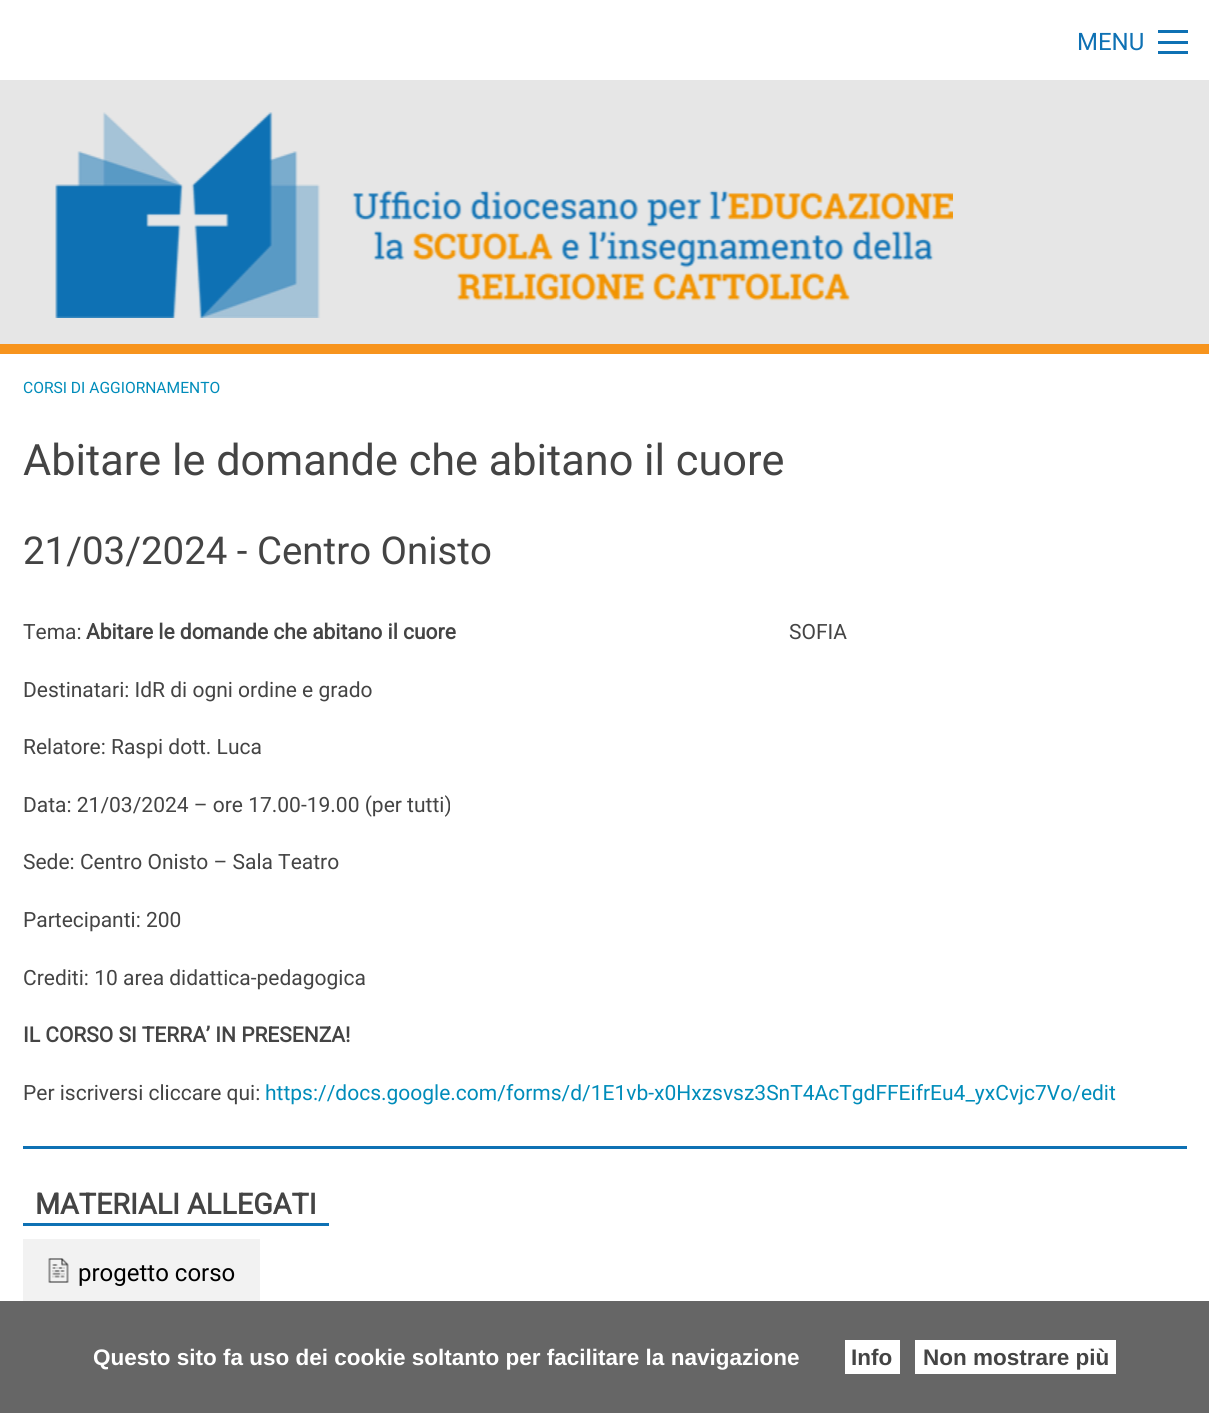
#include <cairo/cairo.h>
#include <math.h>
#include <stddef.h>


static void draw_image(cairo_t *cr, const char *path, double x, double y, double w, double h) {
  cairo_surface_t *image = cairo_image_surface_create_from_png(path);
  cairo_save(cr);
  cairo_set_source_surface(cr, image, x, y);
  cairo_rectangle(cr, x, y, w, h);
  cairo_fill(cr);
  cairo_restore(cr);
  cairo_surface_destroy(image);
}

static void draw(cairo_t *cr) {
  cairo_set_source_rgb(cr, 230 / 255.0, 230 / 255.0, 230 / 255.0);
  cairo_paint(cr);
  cairo_set_source_rgb(cr, 1, 1, 1);
  cairo_rectangle(cr, 0, 0, 1209, 80);
  cairo_fill(cr);
  cairo_set_source_rgb(cr, 14 / 255.0, 113 / 255.0, 180 / 255.0);
  cairo_rectangle(cr, 1158, 51, 30, 3);
  cairo_fill(cr);
  cairo_rectangle(cr, 1158, 41, 30, 3);
  cairo_fill(cr);
  cairo_rectangle(cr, 1158, 30, 30, 3);
  cairo_fill(cr);
  cairo_set_source_rgb(cr, 247 / 255.0, 148 / 255.0, 29 / 255.0);
  cairo_rectangle(cr, 0, 344, 1209, 10);
  cairo_fill(cr);
  draw_image(cr, "images/1.png", 55, 112, 898, 206);
  cairo_set_source_rgb(cr, 1, 1, 1);
  cairo_rectangle(cr, 0, 354, 1209, 947);
  cairo_fill(cr);
  cairo_set_source_rgb(cr, 102 / 255.0, 102 / 255.0, 102 / 255.0);
  cairo_rectangle(cr, 0, 1301, 1209, 112);
  cairo_fill(cr);
  cairo_set_source_rgb(cr, 14 / 255.0, 113 / 255.0, 180 / 255.0);
  cairo_rectangle(cr, 23, 1146, 1164, 3);
  cairo_fill(cr);
  cairo_rectangle(cr, 23, 1223, 306, 3);
  cairo_fill(cr);
  cairo_set_source_rgb(cr, 242 / 255.0, 242 / 255.0, 242 / 255.0);
  cairo_rectangle(cr, 23, 1239, 237, 62);
  cairo_fill(cr);
  draw_image(cr, "images/2.png", 48, 1258, 21, 25);
  cairo_set_source_rgb(cr, 1, 1, 1);
  cairo_rectangle(cr, 845, 1340, 55, 34);
  cairo_fill(cr);
  cairo_rectangle(cr, 915, 1340, 201, 34);
  cairo_fill(cr);
  cairo_select_font_face(cr, "Roboto", CAIRO_FONT_SLANT_NORMAL, CAIRO_FONT_WEIGHT_NORMAL);
  cairo_set_font_size(cr, 24);
  cairo_set_source_rgb(cr, 14 / 255.0, 113 / 255.0, 180 / 255.0);
  cairo_move_to(cr, 1077, 50);
  cairo_show_text(cr, "MENU");
  cairo_set_font_size(cr, 15.6);
  cairo_set_source_rgb(cr, 0, 140 / 255.0, 186 / 255.0);
  cairo_move_to(cr, 23, 393);
  cairo_show_text(cr, "CORSI DI AGGIORNAMENTO");
  cairo_set_font_size(cr, 43.25);
  cairo_set_source_rgb(cr, 68 / 255.0, 68 / 255.0, 68 / 255.0);
  cairo_move_to(cr, 23, 475);
  cairo_show_text(cr, "Abitare le domande che abitano il cuore");
  cairo_set_font_size(cr, 38.4);
  cairo_move_to(cr, 23, 564);
  cairo_show_text(cr, "21/03/2024 - Centro Onisto");
  cairo_set_font_size(cr, 21);
  cairo_move_to(cr, 23, 639);
  cairo_show_text(cr, "Tema:");
  cairo_select_font_face(cr, "Roboto", CAIRO_FONT_SLANT_NORMAL, CAIRO_FONT_WEIGHT_BOLD);
  cairo_move_to(cr, 86, 639);
  cairo_show_text(cr, "Abitare le domande che abitano il cuore");
  cairo_select_font_face(cr, "Roboto", CAIRO_FONT_SLANT_NORMAL, CAIRO_FONT_WEIGHT_NORMAL);
  cairo_move_to(cr, 789, 639);
  cairo_show_text(cr, "SOFIA");
  cairo_move_to(cr, 23, 697);
  cairo_show_text(cr, "Destinatari: IdR di ogni ordine e grado");
  cairo_move_to(cr, 23, 754);
  cairo_show_text(cr, "Relatore: Raspi dott. Luca");
  cairo_move_to(cr, 23, 812);
  cairo_show_text(cr, "Data: 21/03/2024 – ore 17.00-19.00 (per tutti)");
  cairo_move_to(cr, 23, 869);
  cairo_show_text(cr, "Sede: Centro Onisto – Sala Teatro");
  cairo_move_to(cr, 23, 927);
  cairo_show_text(cr, "Partecipanti: 200");
  cairo_move_to(cr, 23, 985);
  cairo_show_text(cr, "Crediti: 10 area didattica-pedagogica");
  cairo_select_font_face(cr, "Roboto", CAIRO_FONT_SLANT_NORMAL, CAIRO_FONT_WEIGHT_BOLD);
  cairo_move_to(cr, 23, 1042);
  cairo_show_text(cr, "IL CORSO SI TERRA’ IN PRESENZA!");
  cairo_select_font_face(cr, "Roboto", CAIRO_FONT_SLANT_NORMAL, CAIRO_FONT_WEIGHT_NORMAL);
  cairo_move_to(cr, 23, 1100);
  cairo_show_text(cr, "Per iscriversi cliccare qui:");
  cairo_set_source_rgb(cr, 0, 140 / 255.0, 186 / 255.0);
  cairo_move_to(cr, 265, 1100);
  cairo_show_text(cr, "https://docs.google.com/forms/d/1E1vb-x0Hxzsvsz3SnT4AcTgdFFEifrEu4_yxCvjc7Vo/edit");
  cairo_select_font_face(cr, "Roboto", CAIRO_FONT_SLANT_NORMAL, CAIRO_FONT_WEIGHT_BOLD);
  cairo_set_font_size(cr, 28.75);
  cairo_set_source_rgb(cr, 68 / 255.0, 68 / 255.0, 68 / 255.0);
  cairo_move_to(cr, 35, 1214);
  cairo_show_text(cr, "MATERIALI ALLEGATI");
  cairo_select_font_face(cr, "Roboto", CAIRO_FONT_SLANT_NORMAL, CAIRO_FONT_WEIGHT_NORMAL);
  cairo_set_font_size(cr, 24);
  cairo_set_source_rgb(cr, 0, 0, 0);
  cairo_move_to(cr, 78, 1281);
  cairo_show_text(cr, "progetto corso");
  cairo_select_font_face(cr, "Liberation Sans", CAIRO_FONT_SLANT_NORMAL, CAIRO_FONT_WEIGHT_BOLD);
  cairo_set_font_size(cr, 22.5);
  cairo_set_source_rgb(cr, 1, 1, 1);
  cairo_move_to(cr, 93, 1365);
  cairo_show_text(cr, "Questo sito fa uso dei cookie soltanto per facilitare la navigazione");
  cairo_set_source_rgb(cr, 68 / 255.0, 68 / 255.0, 68 / 255.0);
  cairo_move_to(cr, 851, 1365);
  cairo_show_text(cr, "Info");
  cairo_move_to(cr, 923, 1365);
  cairo_show_text(cr, "Non mostrare più");
}

int main(void) {
  cairo_surface_t *surface = cairo_image_surface_create(CAIRO_FORMAT_RGB24, 1209, 1413);
  cairo_t *cr = cairo_create(surface);
  cairo_font_options_t *options = cairo_font_options_create();
  cairo_font_options_set_hint_metrics(options, CAIRO_HINT_METRICS_OFF);
  cairo_font_options_set_hint_style(options, CAIRO_HINT_STYLE_NONE);
  cairo_set_font_options(cr, options);
  cairo_set_miter_limit(cr, 4);
  draw(cr);
  cairo_surface_write_to_png(surface, "out.png");
  cairo_font_options_destroy(options);
  cairo_destroy(cr);
  cairo_surface_destroy(surface);
  return 0;
}
